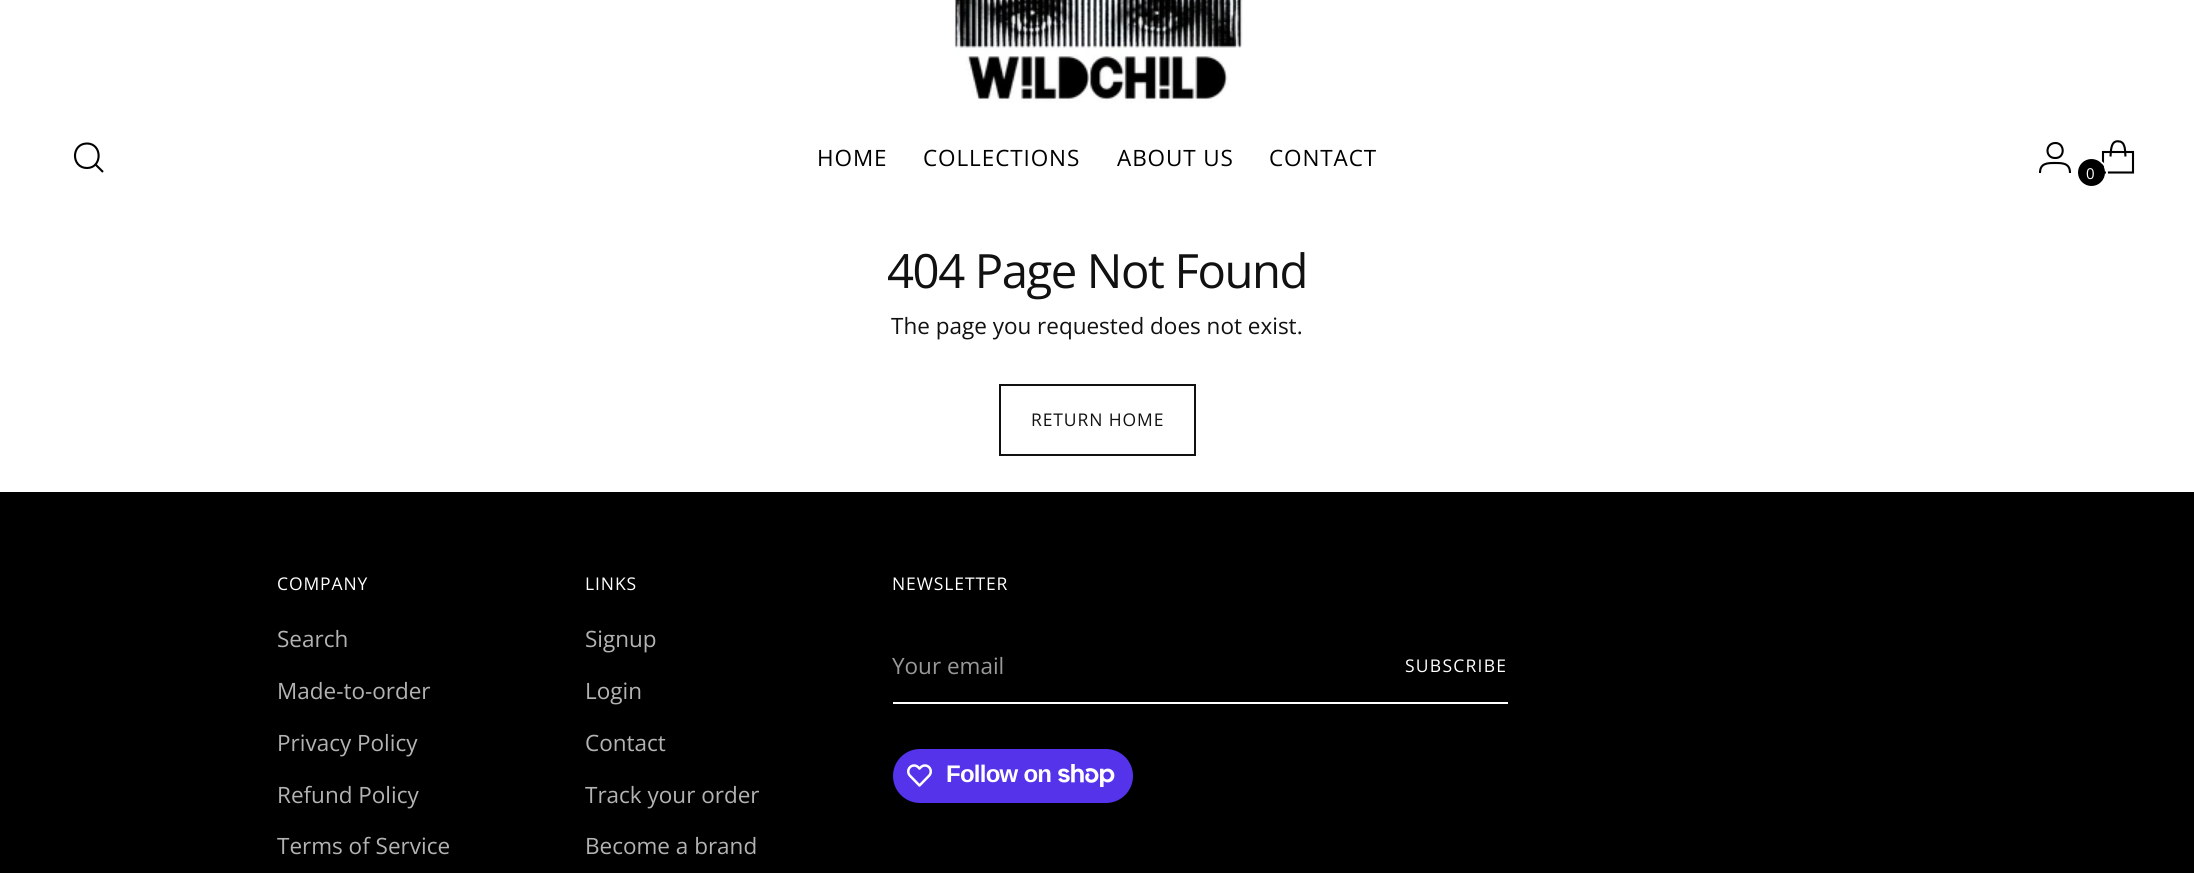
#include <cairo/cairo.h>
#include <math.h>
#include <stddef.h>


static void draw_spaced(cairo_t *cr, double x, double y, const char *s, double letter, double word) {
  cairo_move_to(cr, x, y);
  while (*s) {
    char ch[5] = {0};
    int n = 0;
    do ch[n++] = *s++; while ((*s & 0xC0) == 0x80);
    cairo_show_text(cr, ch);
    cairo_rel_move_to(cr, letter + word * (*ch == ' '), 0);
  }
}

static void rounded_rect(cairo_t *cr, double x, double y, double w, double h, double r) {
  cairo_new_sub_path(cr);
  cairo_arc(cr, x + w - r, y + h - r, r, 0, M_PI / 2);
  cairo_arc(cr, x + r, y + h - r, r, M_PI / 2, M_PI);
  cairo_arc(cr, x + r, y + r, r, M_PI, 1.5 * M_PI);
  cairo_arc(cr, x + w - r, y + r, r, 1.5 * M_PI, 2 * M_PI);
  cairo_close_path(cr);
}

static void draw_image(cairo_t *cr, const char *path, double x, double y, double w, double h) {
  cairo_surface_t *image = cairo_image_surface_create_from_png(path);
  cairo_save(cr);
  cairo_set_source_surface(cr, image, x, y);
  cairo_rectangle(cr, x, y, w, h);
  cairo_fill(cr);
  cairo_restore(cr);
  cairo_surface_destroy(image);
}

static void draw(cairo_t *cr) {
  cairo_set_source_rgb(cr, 1, 1, 1);
  cairo_paint(cr);
  draw_image(cr, "images/1.png", 954, 0, 289, 103);
  cairo_new_path(cr);
  cairo_move_to(cr, 87, 168);
  cairo_curve_to(cr, 102.5, 168, 102.5, 143.5, 87, 143.5);
  cairo_curve_to(cr, 71, 143.5, 71, 168, 87, 168);
  cairo_close_path(cr);
  cairo_set_source_rgb(cr, 0, 0, 0);
  cairo_set_line_width(cr, 2.1);
  cairo_set_line_cap(cr, CAIRO_LINE_CAP_ROUND);
  cairo_stroke(cr);
  cairo_new_path(cr);
  cairo_move_to(cr, 95.5, 164.5);
  cairo_line_to(cr, 103, 172);
  cairo_set_line_cap(cr, CAIRO_LINE_CAP_BUTT);
  cairo_stroke(cr);
  cairo_new_path(cr);
  cairo_move_to(cr, 2055, 158);
  cairo_curve_to(cr, 2065.5, 158.5, 2065, 142.5, 2055, 143);
  cairo_curve_to(cr, 2045, 143.5, 2045, 158, 2055, 158);
  cairo_close_path(cr);
  cairo_move_to(cr, 2040, 173);
  cairo_curve_to(cr, 2040, 163, 2047.5, 163, 2055, 163);
  cairo_curve_to(cr, 2062.5, 163, 2070, 163, 2070, 173);
  cairo_stroke(cr);
  cairo_new_path(cr);
  cairo_move_to(cr, 2125.5, 156.5);
  cairo_curve_to(cr, 2125, 153, 2125.5, 149, 2124, 145.5);
  cairo_curve_to(cr, 2123.5, 143.5, 2121.5, 141.5, 2119.5, 141.5);
  cairo_curve_to(cr, 2110.5, 139.5, 2111, 151, 2110.5, 156.5);
  cairo_set_line_join(cr, CAIRO_LINE_JOIN_BEVEL);
  cairo_stroke(cr);
  cairo_new_path(cr);
  cairo_move_to(cr, 2133, 172.5);
  cairo_line_to(cr, 2133, 152);
  cairo_line_to(cr, 2103, 152);
  cairo_line_to(cr, 2103, 172.5);
  cairo_close_path(cr);
  cairo_set_line_join(cr, CAIRO_LINE_JOIN_MITER);
  cairo_stroke(cr);
  rounded_rect(cr, 2077, 159, 30, 29, 14.5);
  cairo_set_source_rgb(cr, 1, 1, 1);
  cairo_set_line_width(cr, 2);
  cairo_stroke(cr);
  cairo_set_source_rgb(cr, 0, 0, 0);
  cairo_arc(cr, 2091.5, 172.5, 13.5, 0, 2 * M_PI);
  cairo_fill(cr);
  cairo_rectangle(cr, 1000, 385, 195, 70);
  cairo_set_source_rgb(cr, 17 / 255.0, 17 / 255.0, 17 / 255.0);
  cairo_stroke(cr);
  cairo_set_source_rgb(cr, 0, 0, 0);
  cairo_rectangle(cr, 0, 492, 2194, 381);
  cairo_fill(cr);
  cairo_set_source_rgb(cr, 1, 1, 1);
  cairo_rectangle(cr, 893, 702, 615, 2);
  cairo_fill(cr);
  cairo_set_source_rgb(cr, 84 / 255.0, 51 / 255.0, 235 / 255.0);
  rounded_rect(cr, 893, 749, 240, 54, 27);
  cairo_fill(cr);
  draw_image(cr, "images/2.png", 907, 764, 25, 23);
  draw_image(cr, "images/3.png", 1058, 764, 57, 23);
  cairo_select_font_face(cr, "Open Sans", CAIRO_FONT_SLANT_NORMAL, CAIRO_FONT_WEIGHT_NORMAL);
  cairo_set_font_size(cr, 22.5);
  cairo_set_source_rgb(cr, 0, 0, 0);
  draw_spaced(cr, 817, 166, "HOME", 0.9, 0);
  draw_spaced(cr, 923, 166, "COLLECTIONS", 0.9, 0);
  draw_spaced(cr, 1117, 166, "ABOUT US", 0.9, 0);
  draw_spaced(cr, 1269, 166, "CONTACT", 0.9, 0);
  cairo_set_font_size(cr, 15);
  cairo_set_source_rgb(cr, 1, 1, 1);
  cairo_move_to(cr, 2086, 179);
  cairo_show_text(cr, "0");
  cairo_set_font_size(cr, 47.25);
  cairo_set_source_rgb(cr, 17 / 255.0, 17 / 255.0, 17 / 255.0);
  draw_spaced(cr, 887, 288, "404 Page Not Found", -1.4, 0);
  cairo_set_font_size(cr, 22.5);
  cairo_move_to(cr, 891, 334);
  cairo_show_text(cr, "The page you requested does not exist.");
  cairo_set_font_size(cr, 17.5);
  draw_spaced(cr, 1031, 426, "RETURN HOME", 0.9, 0);
  cairo_set_source_rgb(cr, 1, 1, 1);
  draw_spaced(cr, 277, 590, "COMPANY", 0.9, 0);
  cairo_set_font_size(cr, 22.5);
  cairo_set_source_rgb(cr, 179 / 255.0, 179 / 255.0, 179 / 255.0);
  cairo_move_to(cr, 277, 647);
  cairo_show_text(cr, "Search");
  cairo_move_to(cr, 277, 699);
  cairo_show_text(cr, "Made-to-order");
  cairo_move_to(cr, 277, 751);
  cairo_show_text(cr, "Privacy Policy");
  cairo_move_to(cr, 277, 803);
  cairo_show_text(cr, "Refund Policy");
  cairo_move_to(cr, 277, 854);
  cairo_show_text(cr, "Terms of Service");
  cairo_set_font_size(cr, 17.5);
  cairo_set_source_rgb(cr, 1, 1, 1);
  draw_spaced(cr, 585, 590, "LINKS", 0.9, 0);
  cairo_set_font_size(cr, 22.5);
  cairo_set_source_rgb(cr, 179 / 255.0, 179 / 255.0, 179 / 255.0);
  cairo_move_to(cr, 585, 647);
  cairo_show_text(cr, "Signup");
  cairo_move_to(cr, 585, 699);
  cairo_show_text(cr, "Login");
  cairo_move_to(cr, 585, 751);
  cairo_show_text(cr, "Contact");
  cairo_move_to(cr, 585, 803);
  cairo_show_text(cr, "Track your order");
  cairo_move_to(cr, 585, 854);
  cairo_show_text(cr, "Become a brand");
  cairo_set_font_size(cr, 17.5);
  cairo_set_source_rgb(cr, 1, 1, 1);
  draw_spaced(cr, 892, 590, "NEWSLETTER", 0.9, 0);
  cairo_set_font_size(cr, 22.5);
  cairo_set_source_rgb(cr, 153 / 255.0, 153 / 255.0, 153 / 255.0);
  cairo_move_to(cr, 892, 674);
  cairo_show_text(cr, "Your email");
  cairo_set_font_size(cr, 17.5);
  cairo_set_source_rgb(cr, 1, 1, 1);
  draw_spaced(cr, 1405, 672, "SUBSCRIBE", 1.25, 0);
  cairo_select_font_face(cr, "Liberation Sans", CAIRO_FONT_SLANT_NORMAL, CAIRO_FONT_WEIGHT_BOLD);
  cairo_set_font_size(cr, 24);
  draw_spaced(cr, 946, 782, "Follow on", -0.75, 0);
}

int main(void) {
  cairo_surface_t *surface = cairo_image_surface_create(CAIRO_FORMAT_RGB24, 2194, 873);
  cairo_t *cr = cairo_create(surface);
  cairo_font_options_t *options = cairo_font_options_create();
  cairo_font_options_set_hint_metrics(options, CAIRO_HINT_METRICS_OFF);
  cairo_font_options_set_hint_style(options, CAIRO_HINT_STYLE_NONE);
  cairo_set_font_options(cr, options);
  cairo_set_miter_limit(cr, 4);
  draw(cr);
  cairo_surface_write_to_png(surface, "out.png");
  cairo_font_options_destroy(options);
  cairo_destroy(cr);
  cairo_surface_destroy(surface);
  return 0;
}
